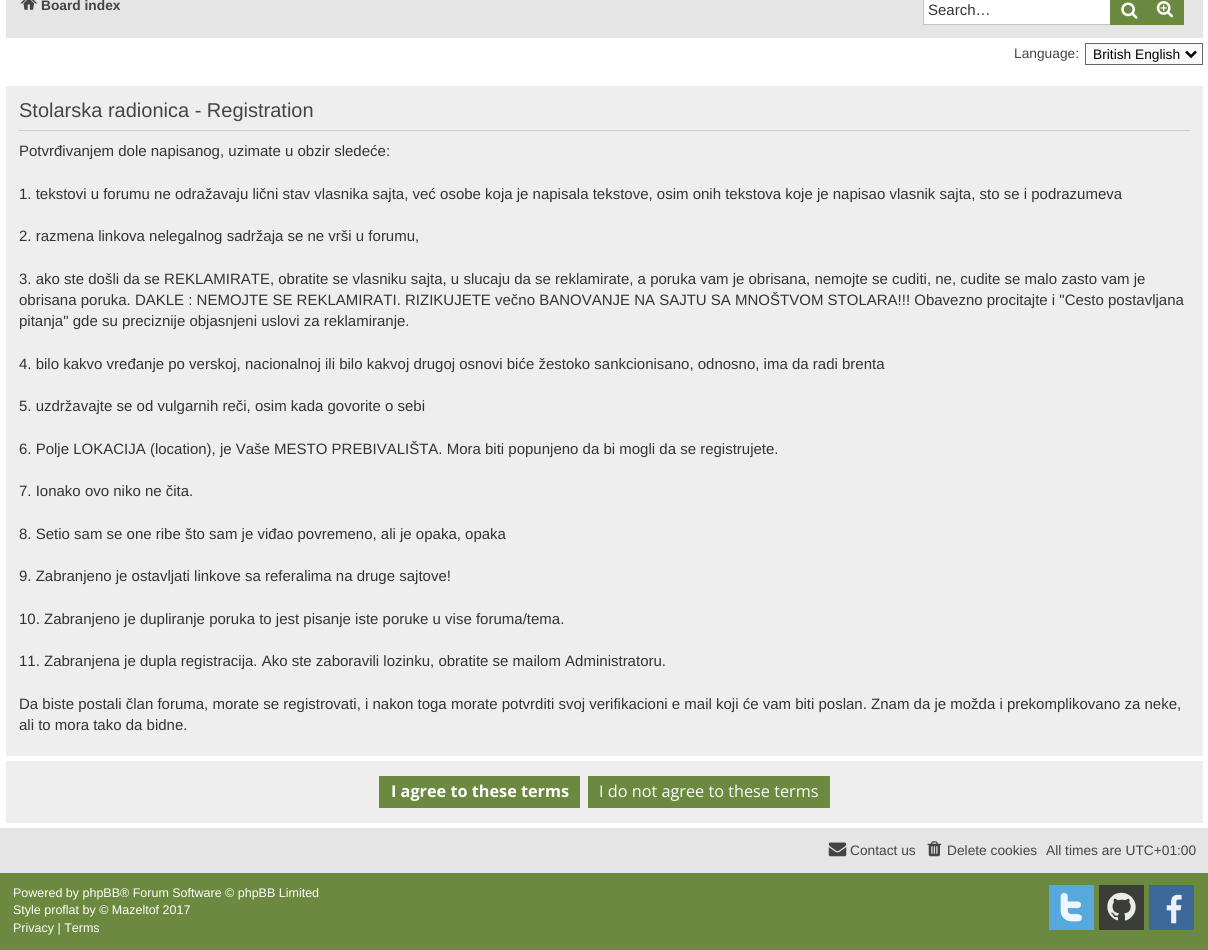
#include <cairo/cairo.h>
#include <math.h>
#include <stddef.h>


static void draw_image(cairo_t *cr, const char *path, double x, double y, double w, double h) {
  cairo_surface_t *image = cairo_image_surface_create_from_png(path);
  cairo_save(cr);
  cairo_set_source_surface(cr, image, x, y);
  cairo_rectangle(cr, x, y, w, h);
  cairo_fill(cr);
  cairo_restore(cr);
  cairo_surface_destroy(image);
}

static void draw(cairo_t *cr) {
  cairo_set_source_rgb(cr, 1, 1, 1);
  cairo_paint(cr);
  cairo_set_source_rgb(cr, 229 / 255.0, 229 / 255.0, 229 / 255.0);
  cairo_rectangle(cr, 6, 0, 1197, 38);
  cairo_fill(cr);
  draw_image(cr, "images/1.png", 20, 0, 18, 10);
  cairo_set_source_rgb(cr, 1, 1, 1);
  cairo_rectangle(cr, 924, 0, 186, 24);
  cairo_fill(cr);
  cairo_set_source_rgb(cr, 199 / 255.0, 195 / 255.0, 191 / 255.0);
  cairo_rectangle(cr, 923, 24, 187, 1);
  cairo_fill(cr);
  cairo_rectangle(cr, 923, 0, 1, 25);
  cairo_fill(cr);
  cairo_set_source_rgb(cr, 108 / 255.0, 138 / 255.0, 63 / 255.0);
  cairo_rectangle(cr, 1110, 0, 38, 25);
  cairo_fill(cr);
  draw_image(cr, "images/2.png", 1121, 2, 17, 17);
  cairo_rectangle(cr, 1148, 0, 35, 24);
  cairo_fill(cr);
  cairo_rectangle(cr, 1183, 0, 1, 25);
  cairo_fill(cr);
  cairo_rectangle(cr, 1148, 24, 36, 1);
  cairo_fill(cr);
  draw_image(cr, "images/3.png", 1156, 1, 17, 17);
  cairo_set_source_rgb(cr, 250 / 255.0, 250 / 255.0, 250 / 255.0);
  cairo_rectangle(cr, 1085.5, 43.5, 117, 21);
  cairo_fill_preserve(cr);
  cairo_set_source_rgb(cr, 102 / 255.0, 102 / 255.0, 102 / 255.0);
  cairo_set_line_width(cr, 1);
  cairo_stroke(cr);
  cairo_new_path(cr);
  cairo_move_to(cr, 1186, 51.5);
  cairo_line_to(cr, 1191, 56.5);
  cairo_line_to(cr, 1196, 51.5);
  cairo_set_source_rgb(cr, 0, 0, 0);
  cairo_set_line_width(cr, 2.5);
  cairo_stroke(cr);
  cairo_set_source_rgb(cr, 238 / 255.0, 238 / 255.0, 238 / 255.0);
  cairo_rectangle(cr, 6, 86, 1197, 670);
  cairo_fill(cr);
  cairo_set_source_rgb(cr, 204 / 255.0, 204 / 255.0, 204 / 255.0);
  cairo_rectangle(cr, 19, 130, 1171, 1);
  cairo_fill(cr);
  cairo_set_source_rgb(cr, 238 / 255.0, 238 / 255.0, 238 / 255.0);
  cairo_rectangle(cr, 6, 761, 1197, 62);
  cairo_fill(cr);
  cairo_set_source_rgb(cr, 108 / 255.0, 138 / 255.0, 63 / 255.0);
  cairo_rectangle(cr, 379, 776, 201, 32);
  cairo_fill(cr);
  cairo_rectangle(cr, 588, 776, 242, 32);
  cairo_fill(cr);
  cairo_set_source_rgb(cr, 229 / 255.0, 229 / 255.0, 229 / 255.0);
  cairo_rectangle(cr, 0, 828, 1208, 45);
  cairo_fill(cr);
  draw_image(cr, "images/4.png", 828, 842, 19, 15);
  draw_image(cr, "images/5.png", 927, 841, 15, 16);
  cairo_set_source_rgb(cr, 108 / 255.0, 138 / 255.0, 63 / 255.0);
  cairo_rectangle(cr, 0, 873, 1208, 77);
  cairo_fill(cr);
  cairo_set_source_rgb(cr, 87 / 255.0, 169 / 255.0, 221 / 255.0);
  cairo_rectangle(cr, 1049, 885, 45, 45);
  cairo_fill(cr);
  draw_image(cr, "images/6.png", 1060, 892, 22, 30);
  cairo_set_source_rgb(cr, 59 / 255.0, 62 / 255.0, 54 / 255.0);
  cairo_rectangle(cr, 1099, 885, 45, 45);
  cairo_fill(cr);
  draw_image(cr, "images/7.png", 1107, 892, 29, 29);
  cairo_set_source_rgb(cr, 60 / 255.0, 105 / 255.0, 153 / 255.0);
  cairo_rectangle(cr, 1149, 885, 45, 45);
  cairo_fill(cr);
  draw_image(cr, "images/8.png", 1166, 894, 16, 30);
  cairo_select_font_face(cr, "Liberation Sans", CAIRO_FONT_SLANT_NORMAL, CAIRO_FONT_WEIGHT_BOLD);
  cairo_set_font_size(cr, 13.75);
  cairo_set_source_rgb(cr, 68 / 255.0, 68 / 255.0, 68 / 255.0);
  cairo_move_to(cr, 41, 10);
  cairo_show_text(cr, "Board index");
  cairo_select_font_face(cr, "Liberation Sans", CAIRO_FONT_SLANT_NORMAL, CAIRO_FONT_WEIGHT_NORMAL);
  cairo_set_font_size(cr, 15);
  cairo_set_source_rgb(cr, 51 / 255.0, 51 / 255.0, 51 / 255.0);
  cairo_move_to(cr, 928, 15);
  cairo_show_text(cr, "Search…");
  cairo_set_font_size(cr, 13.75);
  cairo_set_source_rgb(cr, 68 / 255.0, 68 / 255.0, 68 / 255.0);
  cairo_move_to(cr, 1014, 58);
  cairo_show_text(cr, "Language:");
  cairo_set_source_rgb(cr, 0, 0, 0);
  cairo_move_to(cr, 1093, 59);
  cairo_show_text(cr, "British English");
  cairo_set_font_size(cr, 20);
  cairo_set_source_rgb(cr, 68 / 255.0, 68 / 255.0, 68 / 255.0);
  cairo_move_to(cr, 19, 117);
  cairo_show_text(cr, "Stolarska radionica - Registration");
  cairo_set_font_size(cr, 15);
  cairo_set_source_rgb(cr, 51 / 255.0, 51 / 255.0, 51 / 255.0);
  cairo_move_to(cr, 19, 156);
  cairo_show_text(cr, "Potvrđivanjem dole napisanog, uzimate u obzir sledeće:");
  cairo_move_to(cr, 19, 199);
  cairo_show_text(cr, "1. tekstovi u forumu ne odražavaju lični stav vlasnika sajta, već osobe koja je napisala tekstove, osim onih tekstova koje je napisao vlasnik sajta, sto se i podrazumeva");
  cairo_move_to(cr, 19, 241);
  cairo_show_text(cr, "2. razmena linkova nelegalnog sadržaja se ne vrši u forumu,");
  cairo_move_to(cr, 19, 284);
  cairo_show_text(cr, "3. ako ste došli da se REKLAMIRATE, obratite se vlasniku sajta, u slucaju da se reklamirate, a poruka vam je obrisana, nemojte se cuditi, ne, cudite se malo zasto vam je");
  cairo_move_to(cr, 19, 305);
  cairo_show_text(cr, "obrisana poruka. DAKLE : NEMOJTE SE REKLAMIRATI. RIZIKUJETE večno BANOVANJE NA SAJTU SA MNOŠTVOM STOLARA!!! Obavezno procitajte i \"Cesto postavljana");
  cairo_move_to(cr, 19, 326);
  cairo_show_text(cr, "pitanja\" gde su preciznije objasnjeni uslovi za reklamiranje.");
  cairo_move_to(cr, 19, 369);
  cairo_show_text(cr, "4. bilo kakvo vređanje po verskoj, nacionalnoj ili bilo kakvoj drugoj osnovi biće žestoko sankcionisano, odnosno, ima da radi brenta");
  cairo_move_to(cr, 19, 411);
  cairo_show_text(cr, "5. uzdržavajte se od vulgarnih reči, osim kada govorite o sebi");
  cairo_move_to(cr, 19, 454);
  cairo_show_text(cr, "6. Polje LOKACIJA (location), je Vaše MESTO PREBIVALIŠTA. Mora biti popunjeno da bi mogli da se registrujete.");
  cairo_move_to(cr, 19, 496);
  cairo_show_text(cr, "7. Ionako ovo niko ne čita.");
  cairo_move_to(cr, 19, 539);
  cairo_show_text(cr, "8. Setio sam se one ribe što sam je viđao povremeno, ali je opaka, opaka");
  cairo_move_to(cr, 19, 581);
  cairo_show_text(cr, "9. Zabranjeno je ostavljati linkove sa referalima na druge sajtove!");
  cairo_move_to(cr, 19, 624);
  cairo_show_text(cr, "10. Zabranjeno je dupliranje poruka to jest pisanje iste poruke u vise foruma/tema.");
  cairo_move_to(cr, 19, 666);
  cairo_show_text(cr, "11. Zabranjena je dupla registracija. Ako ste zaboravili lozinku, obratite se mailom Administratoru.");
  cairo_move_to(cr, 19, 709);
  cairo_show_text(cr, "Da biste postali član foruma, morate se registrovati, i nakon toga morate potvrditi svoj verifikacioni e mail koji će vam biti poslan. Znam da je možda i prekomplikovano za neke,");
  cairo_move_to(cr, 19, 730);
  cairo_show_text(cr, "ali to mora tako da bidne.");
  cairo_select_font_face(cr, "Open Sans", CAIRO_FONT_SLANT_NORMAL, CAIRO_FONT_WEIGHT_BOLD);
  cairo_set_font_size(cr, 16.25);
  cairo_set_source_rgb(cr, 1, 1, 1);
  cairo_move_to(cr, 391, 797);
  cairo_show_text(cr, "I agree to these terms");
  cairo_select_font_face(cr, "Open Sans", CAIRO_FONT_SLANT_NORMAL, CAIRO_FONT_WEIGHT_NORMAL);
  cairo_move_to(cr, 599, 797);
  cairo_show_text(cr, "I do not agree to these terms");
  cairo_select_font_face(cr, "Liberation Sans", CAIRO_FONT_SLANT_NORMAL, CAIRO_FONT_WEIGHT_NORMAL);
  cairo_set_font_size(cr, 13.75);
  cairo_set_source_rgb(cr, 68 / 255.0, 68 / 255.0, 68 / 255.0);
  cairo_move_to(cr, 850, 855);
  cairo_show_text(cr, "Contact us");
  cairo_move_to(cr, 947, 855);
  cairo_show_text(cr, "Delete cookies");
  cairo_move_to(cr, 1046, 855);
  cairo_show_text(cr, "All times are UTC+01:00");
  cairo_set_font_size(cr, 12.5);
  cairo_set_source_rgb(cr, 1, 1, 1);
  cairo_move_to(cr, 13, 897);
  cairo_show_text(cr, "Powered by phpBB® Forum Software © phpBB Limited");
  cairo_move_to(cr, 13, 914);
  cairo_show_text(cr, "Style proflat by © Mazeltof 2017");
  cairo_move_to(cr, 13, 932);
  cairo_show_text(cr, "Privacy | Terms");
}

int main(void) {
  cairo_surface_t *surface = cairo_image_surface_create(CAIRO_FORMAT_RGB24, 1208, 950);
  cairo_t *cr = cairo_create(surface);
  cairo_font_options_t *options = cairo_font_options_create();
  cairo_font_options_set_hint_metrics(options, CAIRO_HINT_METRICS_OFF);
  cairo_font_options_set_hint_style(options, CAIRO_HINT_STYLE_NONE);
  cairo_set_font_options(cr, options);
  cairo_set_miter_limit(cr, 4);
  draw(cr);
  cairo_surface_write_to_png(surface, "out.png");
  cairo_font_options_destroy(options);
  cairo_destroy(cr);
  cairo_surface_destroy(surface);
  return 0;
}
